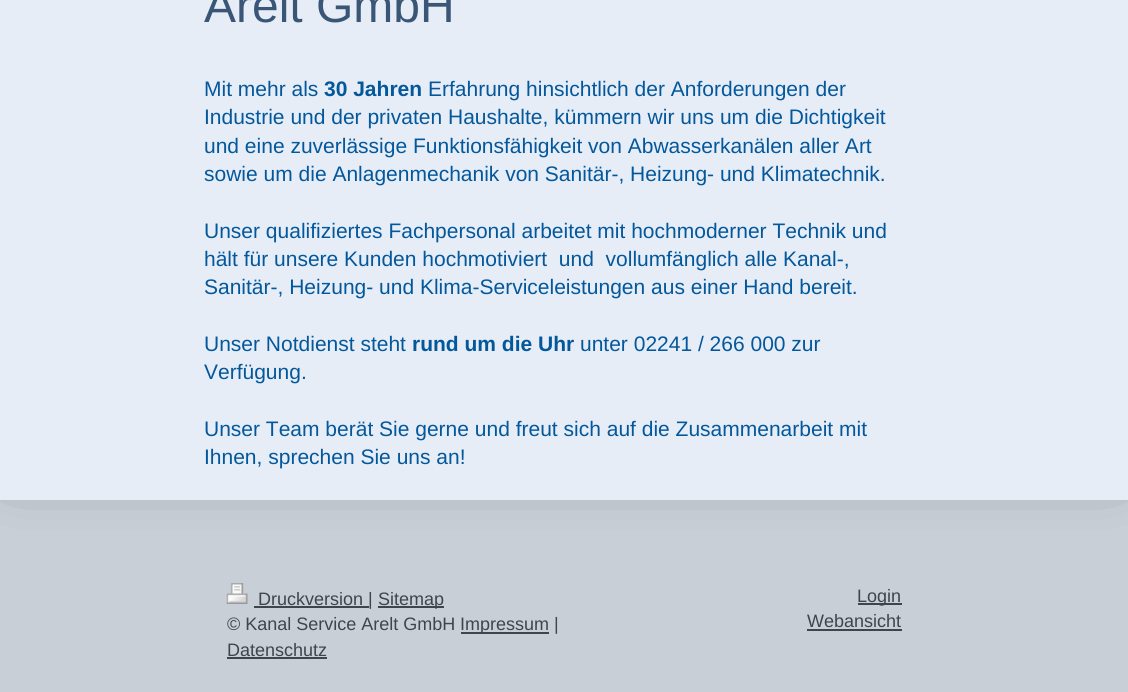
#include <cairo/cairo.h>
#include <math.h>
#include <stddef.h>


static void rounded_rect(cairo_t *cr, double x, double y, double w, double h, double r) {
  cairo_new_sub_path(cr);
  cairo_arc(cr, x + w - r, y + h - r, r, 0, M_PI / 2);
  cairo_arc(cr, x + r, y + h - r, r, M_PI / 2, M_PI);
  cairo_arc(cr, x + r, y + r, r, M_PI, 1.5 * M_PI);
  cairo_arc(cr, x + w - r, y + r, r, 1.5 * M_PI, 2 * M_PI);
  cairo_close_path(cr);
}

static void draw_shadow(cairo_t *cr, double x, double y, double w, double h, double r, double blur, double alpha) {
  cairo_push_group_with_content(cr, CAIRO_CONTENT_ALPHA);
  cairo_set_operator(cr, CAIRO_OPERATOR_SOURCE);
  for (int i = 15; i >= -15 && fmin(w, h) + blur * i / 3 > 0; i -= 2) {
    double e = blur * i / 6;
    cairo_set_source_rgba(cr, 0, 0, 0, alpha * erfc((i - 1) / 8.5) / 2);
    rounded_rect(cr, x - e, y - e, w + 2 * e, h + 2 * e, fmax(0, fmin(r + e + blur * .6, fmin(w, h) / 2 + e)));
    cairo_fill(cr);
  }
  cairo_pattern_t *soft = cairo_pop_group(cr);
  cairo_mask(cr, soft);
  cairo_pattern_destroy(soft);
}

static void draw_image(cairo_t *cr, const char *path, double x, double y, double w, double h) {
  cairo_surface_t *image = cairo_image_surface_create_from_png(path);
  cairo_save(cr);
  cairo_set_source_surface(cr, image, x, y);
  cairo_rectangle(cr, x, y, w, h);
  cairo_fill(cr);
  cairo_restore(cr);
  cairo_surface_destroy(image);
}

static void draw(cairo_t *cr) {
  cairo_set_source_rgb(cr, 200 / 255.0, 207 / 255.0, 215 / 255.0);
  cairo_paint(cr);
  cairo_set_source_rgb(cr, 0, 0, 0);
  draw_shadow(cr, 15, -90, 1098, 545, 0, 30, 1);
  cairo_set_source_rgb(cr, 230 / 255.0, 237 / 255.0, 247 / 255.0);
  cairo_rectangle(cr, 0, 0, 1128, 500);
  cairo_fill(cr);
  draw_image(cr, "images/1.png", 226, 583, 22, 21);
  cairo_set_source_rgb(cr, 61 / 255.0, 69 / 255.0, 78 / 255.0);
  cairo_rectangle(cr, 254, 606, 115, 2);
  cairo_fill(cr);
  cairo_rectangle(cr, 378, 606, 66, 2);
  cairo_fill(cr);
  cairo_rectangle(cr, 461, 632, 88, 2);
  cairo_fill(cr);
  cairo_rectangle(cr, 227, 657, 100, 2);
  cairo_fill(cr);
  cairo_rectangle(cr, 858, 603, 44, 2);
  cairo_fill(cr);
  cairo_rectangle(cr, 807, 629, 95, 2);
  cairo_fill(cr);
  cairo_select_font_face(cr, "Liberation Sans", CAIRO_FONT_SLANT_NORMAL, CAIRO_FONT_WEIGHT_NORMAL);
  cairo_set_font_size(cr, 48);
  cairo_set_source_rgb(cr, 58 / 255.0, 86 / 255.0, 118 / 255.0);
  cairo_move_to(cr, 204, 22);
  cairo_show_text(cr, "Arelt GmbH");
  cairo_set_font_size(cr, 21);
  cairo_set_source_rgb(cr, 3 / 255.0, 87 / 255.0, 155 / 255.0);
  cairo_move_to(cr, 204, 96);
  cairo_show_text(cr, "Mit mehr als");
  cairo_select_font_face(cr, "Liberation Sans", CAIRO_FONT_SLANT_NORMAL, CAIRO_FONT_WEIGHT_BOLD);
  cairo_move_to(cr, 324, 96);
  cairo_show_text(cr, "30 Jahren");
  cairo_select_font_face(cr, "Liberation Sans", CAIRO_FONT_SLANT_NORMAL, CAIRO_FONT_WEIGHT_NORMAL);
  cairo_move_to(cr, 428, 96);
  cairo_show_text(cr, "Erfahrung hinsichtlich der Anforderungen der");
  cairo_move_to(cr, 204, 124);
  cairo_show_text(cr, "Industrie und der privaten Haushalte, kümmern wir uns um die Dichtigkeit");
  cairo_move_to(cr, 204, 153);
  cairo_show_text(cr, "und eine zuverlässige Funktionsfähigkeit von Abwasserkanälen aller Art");
  cairo_move_to(cr, 204, 181);
  cairo_show_text(cr, "sowie um die Anlagenmechanik von Sanitär-, Heizung- und Klimatechnik.");
  cairo_move_to(cr, 204, 238);
  cairo_show_text(cr, "Unser qualifiziertes Fachpersonal arbeitet mit hochmoderner Technik und");
  cairo_move_to(cr, 204, 266);
  cairo_show_text(cr, "hält für unsere Kunden hochmotiviert  und  vollumfänglich alle Kanal-,");
  cairo_move_to(cr, 204, 294);
  cairo_show_text(cr, "Sanitär-, Heizung- und Klima-Serviceleistungen aus einer Hand bereit.");
  cairo_move_to(cr, 204, 351);
  cairo_show_text(cr, "Unser Notdienst steht");
  cairo_select_font_face(cr, "Liberation Sans", CAIRO_FONT_SLANT_NORMAL, CAIRO_FONT_WEIGHT_BOLD);
  cairo_move_to(cr, 412, 351);
  cairo_show_text(cr, "rund um die Uhr");
  cairo_select_font_face(cr, "Liberation Sans", CAIRO_FONT_SLANT_NORMAL, CAIRO_FONT_WEIGHT_NORMAL);
  cairo_move_to(cr, 580, 351);
  cairo_show_text(cr, "unter 02241 / 266 000 zur");
  cairo_move_to(cr, 204, 379);
  cairo_show_text(cr, "Verfügung.");
  cairo_move_to(cr, 204, 436);
  cairo_show_text(cr, "Unser Team berät Sie gerne und freut sich auf die Zusammenarbeit mit");
  cairo_move_to(cr, 204, 464);
  cairo_show_text(cr, "Ihnen, sprechen Sie uns an!");
  cairo_set_font_size(cr, 18);
  cairo_set_source_rgb(cr, 61 / 255.0, 69 / 255.0, 78 / 255.0);
  cairo_move_to(cr, 258, 605);
  cairo_show_text(cr, "Druckversion |");
  cairo_move_to(cr, 378, 605);
  cairo_show_text(cr, "Sitemap");
  cairo_save(cr);
  cairo_rectangle(cr, 227, 584, 675, 79);
  cairo_clip(cr);
  cairo_move_to(cr, 227, 630);
  cairo_show_text(cr, "© Kanal Service Arelt GmbH");
  cairo_restore(cr);
  cairo_move_to(cr, 460, 630);
  cairo_show_text(cr, "Impressum |");
  cairo_move_to(cr, 227, 656);
  cairo_show_text(cr, "Datenschutz");
  cairo_move_to(cr, 857, 602);
  cairo_show_text(cr, "Login");
  cairo_move_to(cr, 807, 627);
  cairo_show_text(cr, "Webansicht");
}

int main(void) {
  cairo_surface_t *surface = cairo_image_surface_create(CAIRO_FORMAT_RGB24, 1128, 692);
  cairo_t *cr = cairo_create(surface);
  cairo_font_options_t *options = cairo_font_options_create();
  cairo_font_options_set_hint_metrics(options, CAIRO_HINT_METRICS_OFF);
  cairo_font_options_set_hint_style(options, CAIRO_HINT_STYLE_NONE);
  cairo_set_font_options(cr, options);
  cairo_set_miter_limit(cr, 4);
  draw(cr);
  cairo_surface_write_to_png(surface, "out.png");
  cairo_font_options_destroy(options);
  cairo_destroy(cr);
  cairo_surface_destroy(surface);
  return 0;
}
